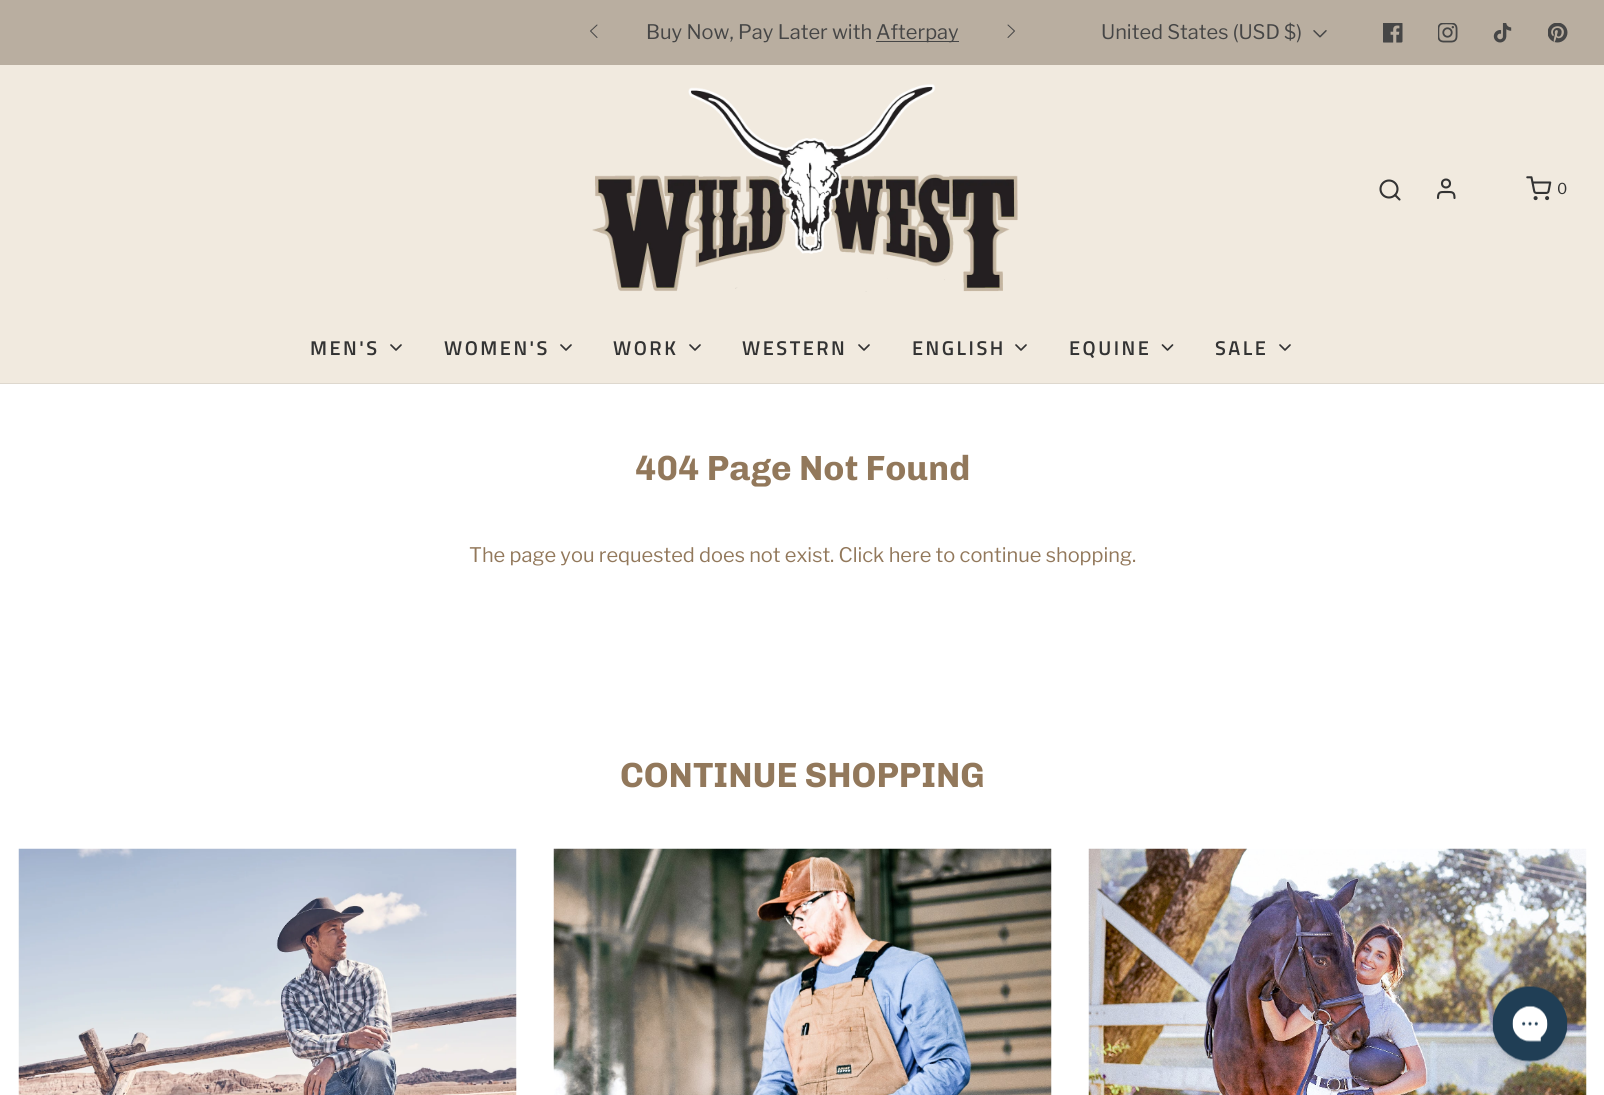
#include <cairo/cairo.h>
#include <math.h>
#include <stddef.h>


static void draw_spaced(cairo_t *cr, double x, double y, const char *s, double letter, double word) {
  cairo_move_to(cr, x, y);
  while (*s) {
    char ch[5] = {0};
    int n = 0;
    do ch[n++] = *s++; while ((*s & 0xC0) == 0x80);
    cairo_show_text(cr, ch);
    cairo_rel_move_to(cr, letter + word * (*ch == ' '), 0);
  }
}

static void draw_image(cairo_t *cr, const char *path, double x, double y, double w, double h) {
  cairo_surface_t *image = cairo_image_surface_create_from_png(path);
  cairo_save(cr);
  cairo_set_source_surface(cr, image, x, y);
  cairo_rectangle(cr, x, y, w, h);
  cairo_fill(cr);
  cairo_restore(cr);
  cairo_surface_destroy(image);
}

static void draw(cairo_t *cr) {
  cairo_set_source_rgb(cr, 1, 1, 1);
  cairo_paint(cr);
  cairo_set_source_rgb(cr, 185 / 255.0, 174 / 255.0, 160 / 255.0);
  cairo_rectangle(cr, 0, 0, 1604, 65);
  cairo_fill(cr);
  cairo_new_path(cr);
  cairo_move_to(cr, 597, 37.5);
  cairo_line_to(cr, 590.5, 31);
  cairo_line_to(cr, 597, 25);
  cairo_set_source_rgb(cr, 70 / 255.0, 70 / 255.0, 70 / 255.0);
  cairo_set_line_width(cr, 1);
  cairo_set_line_cap(cr, CAIRO_LINE_CAP_ROUND);
  cairo_set_line_join(cr, CAIRO_LINE_JOIN_ROUND);
  cairo_stroke(cr);
  cairo_new_path(cr);
  cairo_move_to(cr, 1008, 37.5);
  cairo_line_to(cr, 1014.5, 31);
  cairo_line_to(cr, 1008, 25);
  cairo_stroke(cr);
  cairo_rectangle(cr, 876, 41, 83, 1);
  cairo_fill(cr);
  draw_image(cr, "images/1.png", 1313, 30, 14, 8);
  draw_image(cr, "images/2.png", 1383, 23, 20, 20);
  draw_image(cr, "images/3.png", 1438, 23, 20, 20);
  draw_image(cr, "images/4.png", 1493, 23, 19, 20);
  draw_image(cr, "images/5.png", 1548, 23, 20, 20);
  cairo_set_source_rgb(cr, 241 / 255.0, 234 / 255.0, 223 / 255.0);
  cairo_rectangle(cr, 0, 65, 1604, 318);
  cairo_fill(cr);
  cairo_set_source_rgb(cr, 222 / 255.0, 216 / 255.0, 206 / 255.0);
  cairo_rectangle(cr, 0, 383, 1604, 1);
  cairo_fill(cr);
  draw_image(cr, "images/6.png", 592, 84, 426, 208);
  cairo_arc(cr, 1446, 183.5, 4, 0, 2 * M_PI);
  cairo_set_source_rgb(cr, 51 / 255.0, 51 / 255.0, 51 / 255.0);
  cairo_set_line_width(cr, 2.1);
  cairo_set_line_cap(cr, CAIRO_LINE_CAP_BUTT);
  cairo_set_line_join(cr, CAIRO_LINE_JOIN_MITER);
  cairo_stroke(cr);
  cairo_arc(cr, 1389, 189, 8.5, 0, 2 * M_PI);
  cairo_stroke(cr);
  cairo_new_path(cr);
  cairo_move_to(cr, 1399.5, 199.5);
  cairo_line_to(cr, 1395, 195);
  cairo_move_to(cr, 1454.5, 198);
  cairo_curve_to(cr, 1454.5, 191.5, 1452, 192, 1446, 192);
  cairo_curve_to(cr, 1440.5, 192, 1438, 191.5, 1438, 198);
  cairo_set_line_cap(cr, CAIRO_LINE_CAP_ROUND);
  cairo_set_line_join(cr, CAIRO_LINE_JOIN_ROUND);
  cairo_stroke(cr);
  draw_image(cr, "images/7.png", 1526, 176, 26, 25);
  cairo_new_path(cr);
  cairo_move_to(cr, 391, 345);
  cairo_line_to(cr, 396, 350);
  cairo_line_to(cr, 401, 345);
  cairo_set_line_width(cr, 1.7);
  cairo_stroke(cr);
  cairo_new_path(cr);
  cairo_move_to(cr, 561, 345);
  cairo_line_to(cr, 566, 350);
  cairo_line_to(cr, 571, 345);
  cairo_stroke(cr);
  cairo_new_path(cr);
  cairo_move_to(cr, 690, 345);
  cairo_line_to(cr, 695, 350);
  cairo_line_to(cr, 700, 345);
  cairo_stroke(cr);
  cairo_new_path(cr);
  cairo_move_to(cr, 859, 345);
  cairo_line_to(cr, 864, 350);
  cairo_line_to(cr, 869, 345);
  cairo_stroke(cr);
  cairo_new_path(cr);
  cairo_move_to(cr, 1016, 345);
  cairo_line_to(cr, 1021, 350);
  cairo_line_to(cr, 1026, 345);
  cairo_stroke(cr);
  cairo_new_path(cr);
  cairo_move_to(cr, 1162.5, 345);
  cairo_line_to(cr, 1167.5, 350);
  cairo_line_to(cr, 1172.5, 345);
  cairo_stroke(cr);
  cairo_new_path(cr);
  cairo_move_to(cr, 1280, 345);
  cairo_line_to(cr, 1285, 350);
  cairo_line_to(cr, 1290, 345);
  cairo_stroke(cr);
  draw_image(cr, "images/8.png", 18, 848, 499, 247);
  draw_image(cr, "images/9.png", 553, 848, 499, 247);
  draw_image(cr, "images/10.png", 1088, 848, 499, 247);
  draw_image(cr, "images/11.png", 1490, 985, 80, 81);
  cairo_select_font_face(cr, "Libre Franklin Thin", CAIRO_FONT_SLANT_NORMAL, CAIRO_FONT_WEIGHT_NORMAL);
  cairo_set_font_size(cr, 20);
  cairo_set_source_rgb(cr, 70 / 255.0, 70 / 255.0, 70 / 255.0);
  cairo_move_to(cr, 646, 39);
  cairo_show_text(cr, "Buy Now, Pay Later with");
  cairo_move_to(cr, 876, 39);
  cairo_show_text(cr, "Afterpay");
  cairo_move_to(cr, 1101, 39);
  cairo_show_text(cr, "United States (USD $)");
  cairo_set_font_size(cr, 15);
  cairo_set_source_rgb(cr, 51 / 255.0, 51 / 255.0, 51 / 255.0);
  cairo_move_to(cr, 1557, 194);
  cairo_show_text(cr, "0");
  cairo_select_font_face(cr, "Titillium Web SemiBold", CAIRO_FONT_SLANT_NORMAL, CAIRO_FONT_WEIGHT_NORMAL);
  cairo_set_font_size(cr, 20);
  draw_spaced(cr, 310, 355, "MEN'S", 2.5, 0);
  draw_spaced(cr, 444, 355, "WOMEN'S", 2.5, 0);
  draw_spaced(cr, 613, 355, "WORK", 2.5, 0);
  draw_spaced(cr, 742, 355, "WESTERN", 2.5, 0);
  draw_spaced(cr, 912, 355, "ENGLISH", 2.5, 0);
  draw_spaced(cr, 1069, 355, "EQUINE", 2.5, 0);
  draw_spaced(cr, 1215, 355, "SALE", 2.5, 0);
  cairo_select_font_face(cr, "Chivo", CAIRO_FONT_SLANT_NORMAL, CAIRO_FONT_WEIGHT_BOLD);
  cairo_set_font_size(cr, 35);
  cairo_set_source_rgb(cr, 146 / 255.0, 120 / 255.0, 91 / 255.0);
  cairo_move_to(cr, 635, 480);
  cairo_show_text(cr, "404 Page Not Found");
  cairo_select_font_face(cr, "Libre Franklin Thin", CAIRO_FONT_SLANT_NORMAL, CAIRO_FONT_WEIGHT_NORMAL);
  cairo_set_font_size(cr, 20);
  cairo_move_to(cr, 469, 562);
  cairo_show_text(cr, "The page you requested does not exist. Click here to continue shopping.");
  cairo_select_font_face(cr, "Chivo", CAIRO_FONT_SLANT_NORMAL, CAIRO_FONT_WEIGHT_BOLD);
  cairo_set_font_size(cr, 35);
  cairo_move_to(cr, 620, 787);
  cairo_show_text(cr, "CONTINUE SHOPPING");
}

int main(void) {
  cairo_surface_t *surface = cairo_image_surface_create(CAIRO_FORMAT_RGB24, 1604, 1095);
  cairo_t *cr = cairo_create(surface);
  cairo_font_options_t *options = cairo_font_options_create();
  cairo_font_options_set_hint_metrics(options, CAIRO_HINT_METRICS_OFF);
  cairo_font_options_set_hint_style(options, CAIRO_HINT_STYLE_NONE);
  cairo_set_font_options(cr, options);
  cairo_set_miter_limit(cr, 4);
  draw(cr);
  cairo_surface_write_to_png(surface, "out.png");
  cairo_font_options_destroy(options);
  cairo_destroy(cr);
  cairo_surface_destroy(surface);
  return 0;
}
